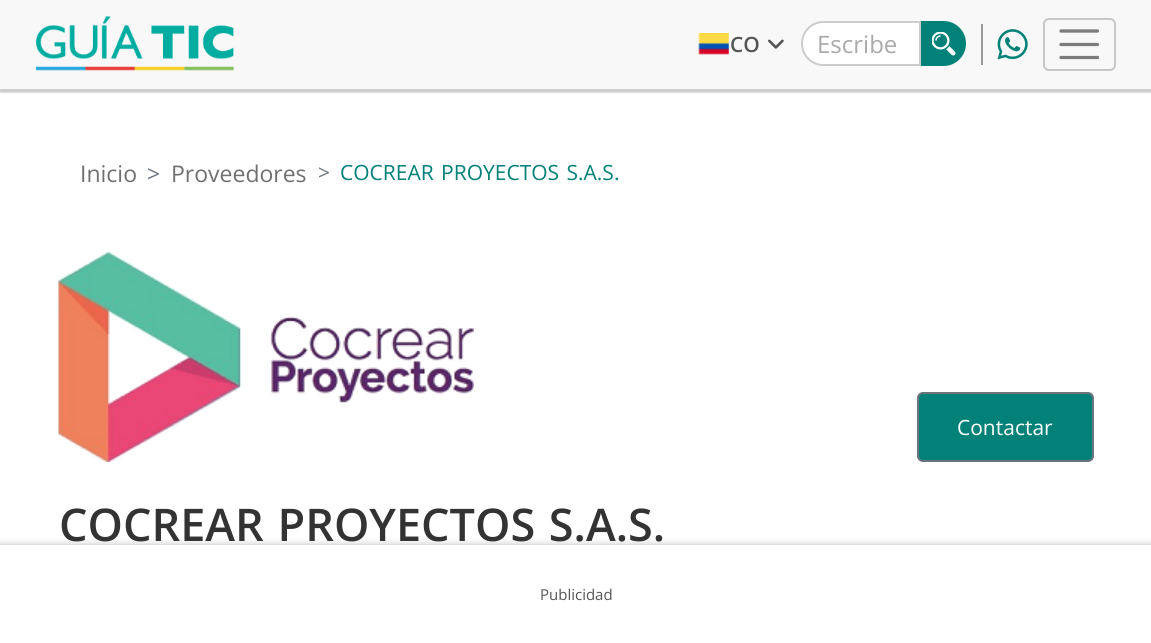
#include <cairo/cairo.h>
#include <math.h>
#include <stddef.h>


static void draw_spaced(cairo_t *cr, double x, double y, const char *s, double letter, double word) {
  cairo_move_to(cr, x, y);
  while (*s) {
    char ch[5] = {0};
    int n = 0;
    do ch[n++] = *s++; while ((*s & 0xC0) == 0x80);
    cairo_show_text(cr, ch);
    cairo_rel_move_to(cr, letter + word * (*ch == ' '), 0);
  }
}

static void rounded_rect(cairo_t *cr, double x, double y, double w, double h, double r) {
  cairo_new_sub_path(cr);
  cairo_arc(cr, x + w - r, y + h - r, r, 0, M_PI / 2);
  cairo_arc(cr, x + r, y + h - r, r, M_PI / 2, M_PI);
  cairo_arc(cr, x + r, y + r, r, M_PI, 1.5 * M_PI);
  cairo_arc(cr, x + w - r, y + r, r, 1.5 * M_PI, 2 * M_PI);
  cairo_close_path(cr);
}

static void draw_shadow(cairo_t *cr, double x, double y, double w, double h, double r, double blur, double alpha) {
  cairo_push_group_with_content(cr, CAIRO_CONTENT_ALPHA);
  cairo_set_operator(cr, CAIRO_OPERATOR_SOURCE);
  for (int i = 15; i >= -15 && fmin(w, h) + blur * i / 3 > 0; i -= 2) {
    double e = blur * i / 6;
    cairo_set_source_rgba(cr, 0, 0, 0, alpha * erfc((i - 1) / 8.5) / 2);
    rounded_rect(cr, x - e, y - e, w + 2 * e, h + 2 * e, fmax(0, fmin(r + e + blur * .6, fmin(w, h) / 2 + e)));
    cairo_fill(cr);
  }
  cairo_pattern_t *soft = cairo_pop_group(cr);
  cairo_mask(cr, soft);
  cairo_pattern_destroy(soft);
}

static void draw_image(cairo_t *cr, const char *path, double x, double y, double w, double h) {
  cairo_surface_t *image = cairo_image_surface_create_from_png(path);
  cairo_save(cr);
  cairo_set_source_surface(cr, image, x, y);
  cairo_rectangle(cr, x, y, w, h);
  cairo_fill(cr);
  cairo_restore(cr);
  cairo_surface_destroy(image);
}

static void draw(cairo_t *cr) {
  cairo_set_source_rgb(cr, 1, 1, 1);
  cairo_paint(cr);
  cairo_set_source_rgb(cr, 204 / 255.0, 204 / 255.0, 204 / 255.0);
  draw_shadow(cr, 0, 0, 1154, 92, 0, 1, 1);
  draw_shadow(cr, 0, 0, 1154, 92, 0, 1, 1);
  cairo_set_source_rgb(cr, 248 / 255.0, 248 / 255.0, 248 / 255.0);
  cairo_rectangle(cr, 0, 0, 1151, 89);
  cairo_fill(cr);
  draw_image(cr, "images/1.png", 36, 16, 198, 55);
  draw_image(cr, "images/2.png", 698, 33, 31, 22);
  draw_image(cr, "images/3.png", 768, 39, 16, 10);
  cairo_set_source_rgb(cr, 1, 1, 1);
  cairo_new_path(cr);
  cairo_move_to(cr, 823.5, 22);
  cairo_line_to(cr, 920, 22);
  cairo_line_to(cr, 920, 65);
  cairo_line_to(cr, 823.5, 65);
  cairo_curve_to(cr, 811.5, 65, 802, 55.5, 802, 43.5);
  cairo_curve_to(cr, 802, 31.5, 811.5, 22, 823.5, 22);
  cairo_close_path(cr);
  cairo_fill_preserve(cr);
  cairo_set_source_rgb(cr, 204 / 255.0, 204 / 255.0, 204 / 255.0);
  cairo_stroke(cr);
  cairo_set_source_rgb(cr, 2 / 255.0, 129 / 255.0, 121 / 255.0);
  cairo_new_path(cr);
  cairo_move_to(cr, 921, 21);
  cairo_line_to(cr, 943.5, 21);
  cairo_curve_to(cr, 956, 21, 966, 31, 966, 43.5);
  cairo_curve_to(cr, 966, 56, 956, 66, 943.5, 66);
  cairo_line_to(cr, 921, 66);
  cairo_close_path(cr);
  cairo_fill(cr);
  draw_image(cr, "images/4.png", 932, 32, 24, 24);
  cairo_set_source_rgb(cr, 153 / 255.0, 153 / 255.0, 153 / 255.0);
  cairo_rectangle(cr, 981, 24, 2, 41);
  cairo_fill(cr);
  draw_image(cr, "images/5.png", 997, 29, 31, 31);
  cairo_new_path(cr);
  cairo_move_to(cr, 1061, 31);
  cairo_line_to(cr, 1097.5, 31);
  cairo_move_to(cr, 1061, 44.5);
  cairo_line_to(cr, 1097.5, 44.5);
  cairo_move_to(cr, 1061, 57.5);
  cairo_line_to(cr, 1097.5, 57.5);
  cairo_set_source_rgb(cr, 124 / 255.0, 124 / 255.0, 124 / 255.0);
  cairo_set_line_width(cr, 3.3);
  cairo_set_line_cap(cr, CAIRO_LINE_CAP_ROUND);
  cairo_stroke(cr);
  rounded_rect(cr, 1044, 19, 71, 51, 5);
  cairo_set_source_rgb(cr, 199 / 255.0, 199 / 255.0, 199 / 255.0);
  cairo_set_line_width(cr, 2);
  cairo_set_line_cap(cr, CAIRO_LINE_CAP_BUTT);
  cairo_stroke(cr);
  draw_image(cr, "images/6.png", 58, 252, 416, 210);
  cairo_set_source_rgb(cr, 2 / 255.0, 129 / 255.0, 121 / 255.0);
  rounded_rect(cr, 918, 393, 175, 68, 5);
  cairo_fill_preserve(cr);
  cairo_set_source_rgb(cr, 108 / 255.0, 117 / 255.0, 125 / 255.0);
  cairo_stroke(cr);
  cairo_set_source_rgb(cr, 0, 0, 0);
  draw_shadow(cr, -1, 546, 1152, 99, 0, 4, 0.36);
  cairo_set_source_rgb(cr, 1, 1, 1);
  cairo_rectangle(cr, 0, 545, 1151, 98);
  cairo_fill(cr);
  cairo_select_font_face(cr, "Open Sans SemiBold", CAIRO_FONT_SLANT_NORMAL, CAIRO_FONT_WEIGHT_NORMAL);
  cairo_set_font_size(cr, 21);
  cairo_set_source_rgb(cr, 85 / 255.0, 85 / 255.0, 85 / 255.0);
  cairo_move_to(cr, 730, 52);
  cairo_show_text(cr, "CO");
  cairo_select_font_face(cr, "Open Sans", CAIRO_FONT_SLANT_NORMAL, CAIRO_FONT_WEIGHT_NORMAL);
  cairo_set_font_size(cr, 24);
  cairo_set_source_rgb(cr, 170 / 255.0, 170 / 255.0, 170 / 255.0);
  cairo_move_to(cr, 817, 53);
  cairo_show_text(cr, "Escribe");
  cairo_set_font_size(cr, 23);
  cairo_set_source_rgb(cr, 112 / 255.0, 112 / 255.0, 112 / 255.0);
  cairo_move_to(cr, 80, 182);
  cairo_show_text(cr, "Inicio");
  cairo_set_source_rgb(cr, 108 / 255.0, 117 / 255.0, 125 / 255.0);
  cairo_move_to(cr, 147, 182);
  cairo_show_text(cr, ">");
  cairo_set_source_rgb(cr, 112 / 255.0, 112 / 255.0, 112 / 255.0);
  cairo_move_to(cr, 171, 182);
  cairo_show_text(cr, "Proveedores");
  cairo_set_font_size(cr, 21);
  cairo_set_source_rgb(cr, 108 / 255.0, 117 / 255.0, 125 / 255.0);
  cairo_move_to(cr, 318, 180);
  cairo_show_text(cr, ">");
  cairo_set_source_rgb(cr, 2 / 255.0, 129 / 255.0, 121 / 255.0);
  draw_spaced(cr, 340, 180, "COCREAR PROYECTOS S.A.S.", 0, 2);
  cairo_set_source_rgb(cr, 1, 1, 1);
  cairo_move_to(cr, 957, 435);
  cairo_show_text(cr, "Contactar");
  cairo_select_font_face(cr, "Open Sans SemiBold", CAIRO_FONT_SLANT_NORMAL, CAIRO_FONT_WEIGHT_NORMAL);
  cairo_set_font_size(cr, 45);
  cairo_set_source_rgb(cr, 51 / 255.0, 51 / 255.0, 51 / 255.0);
  draw_spaced(cr, 59, 541, "COCREAR PROYECTOS S.A.S.", 0, 2);
  cairo_select_font_face(cr, "Open Sans", CAIRO_FONT_SLANT_NORMAL, CAIRO_FONT_WEIGHT_NORMAL);
  cairo_set_font_size(cr, 15);
  cairo_set_source_rgb(cr, 85 / 255.0, 85 / 255.0, 85 / 255.0);
  cairo_move_to(cr, 540, 600);
  cairo_show_text(cr, "Publicidad");
}

int main(void) {
  cairo_surface_t *surface = cairo_image_surface_create(CAIRO_FORMAT_RGB24, 1151, 643);
  cairo_t *cr = cairo_create(surface);
  cairo_font_options_t *options = cairo_font_options_create();
  cairo_font_options_set_hint_metrics(options, CAIRO_HINT_METRICS_OFF);
  cairo_font_options_set_hint_style(options, CAIRO_HINT_STYLE_NONE);
  cairo_set_font_options(cr, options);
  cairo_set_miter_limit(cr, 4);
  draw(cr);
  cairo_surface_write_to_png(surface, "out.png");
  cairo_font_options_destroy(options);
  cairo_destroy(cr);
  cairo_surface_destroy(surface);
  return 0;
}
